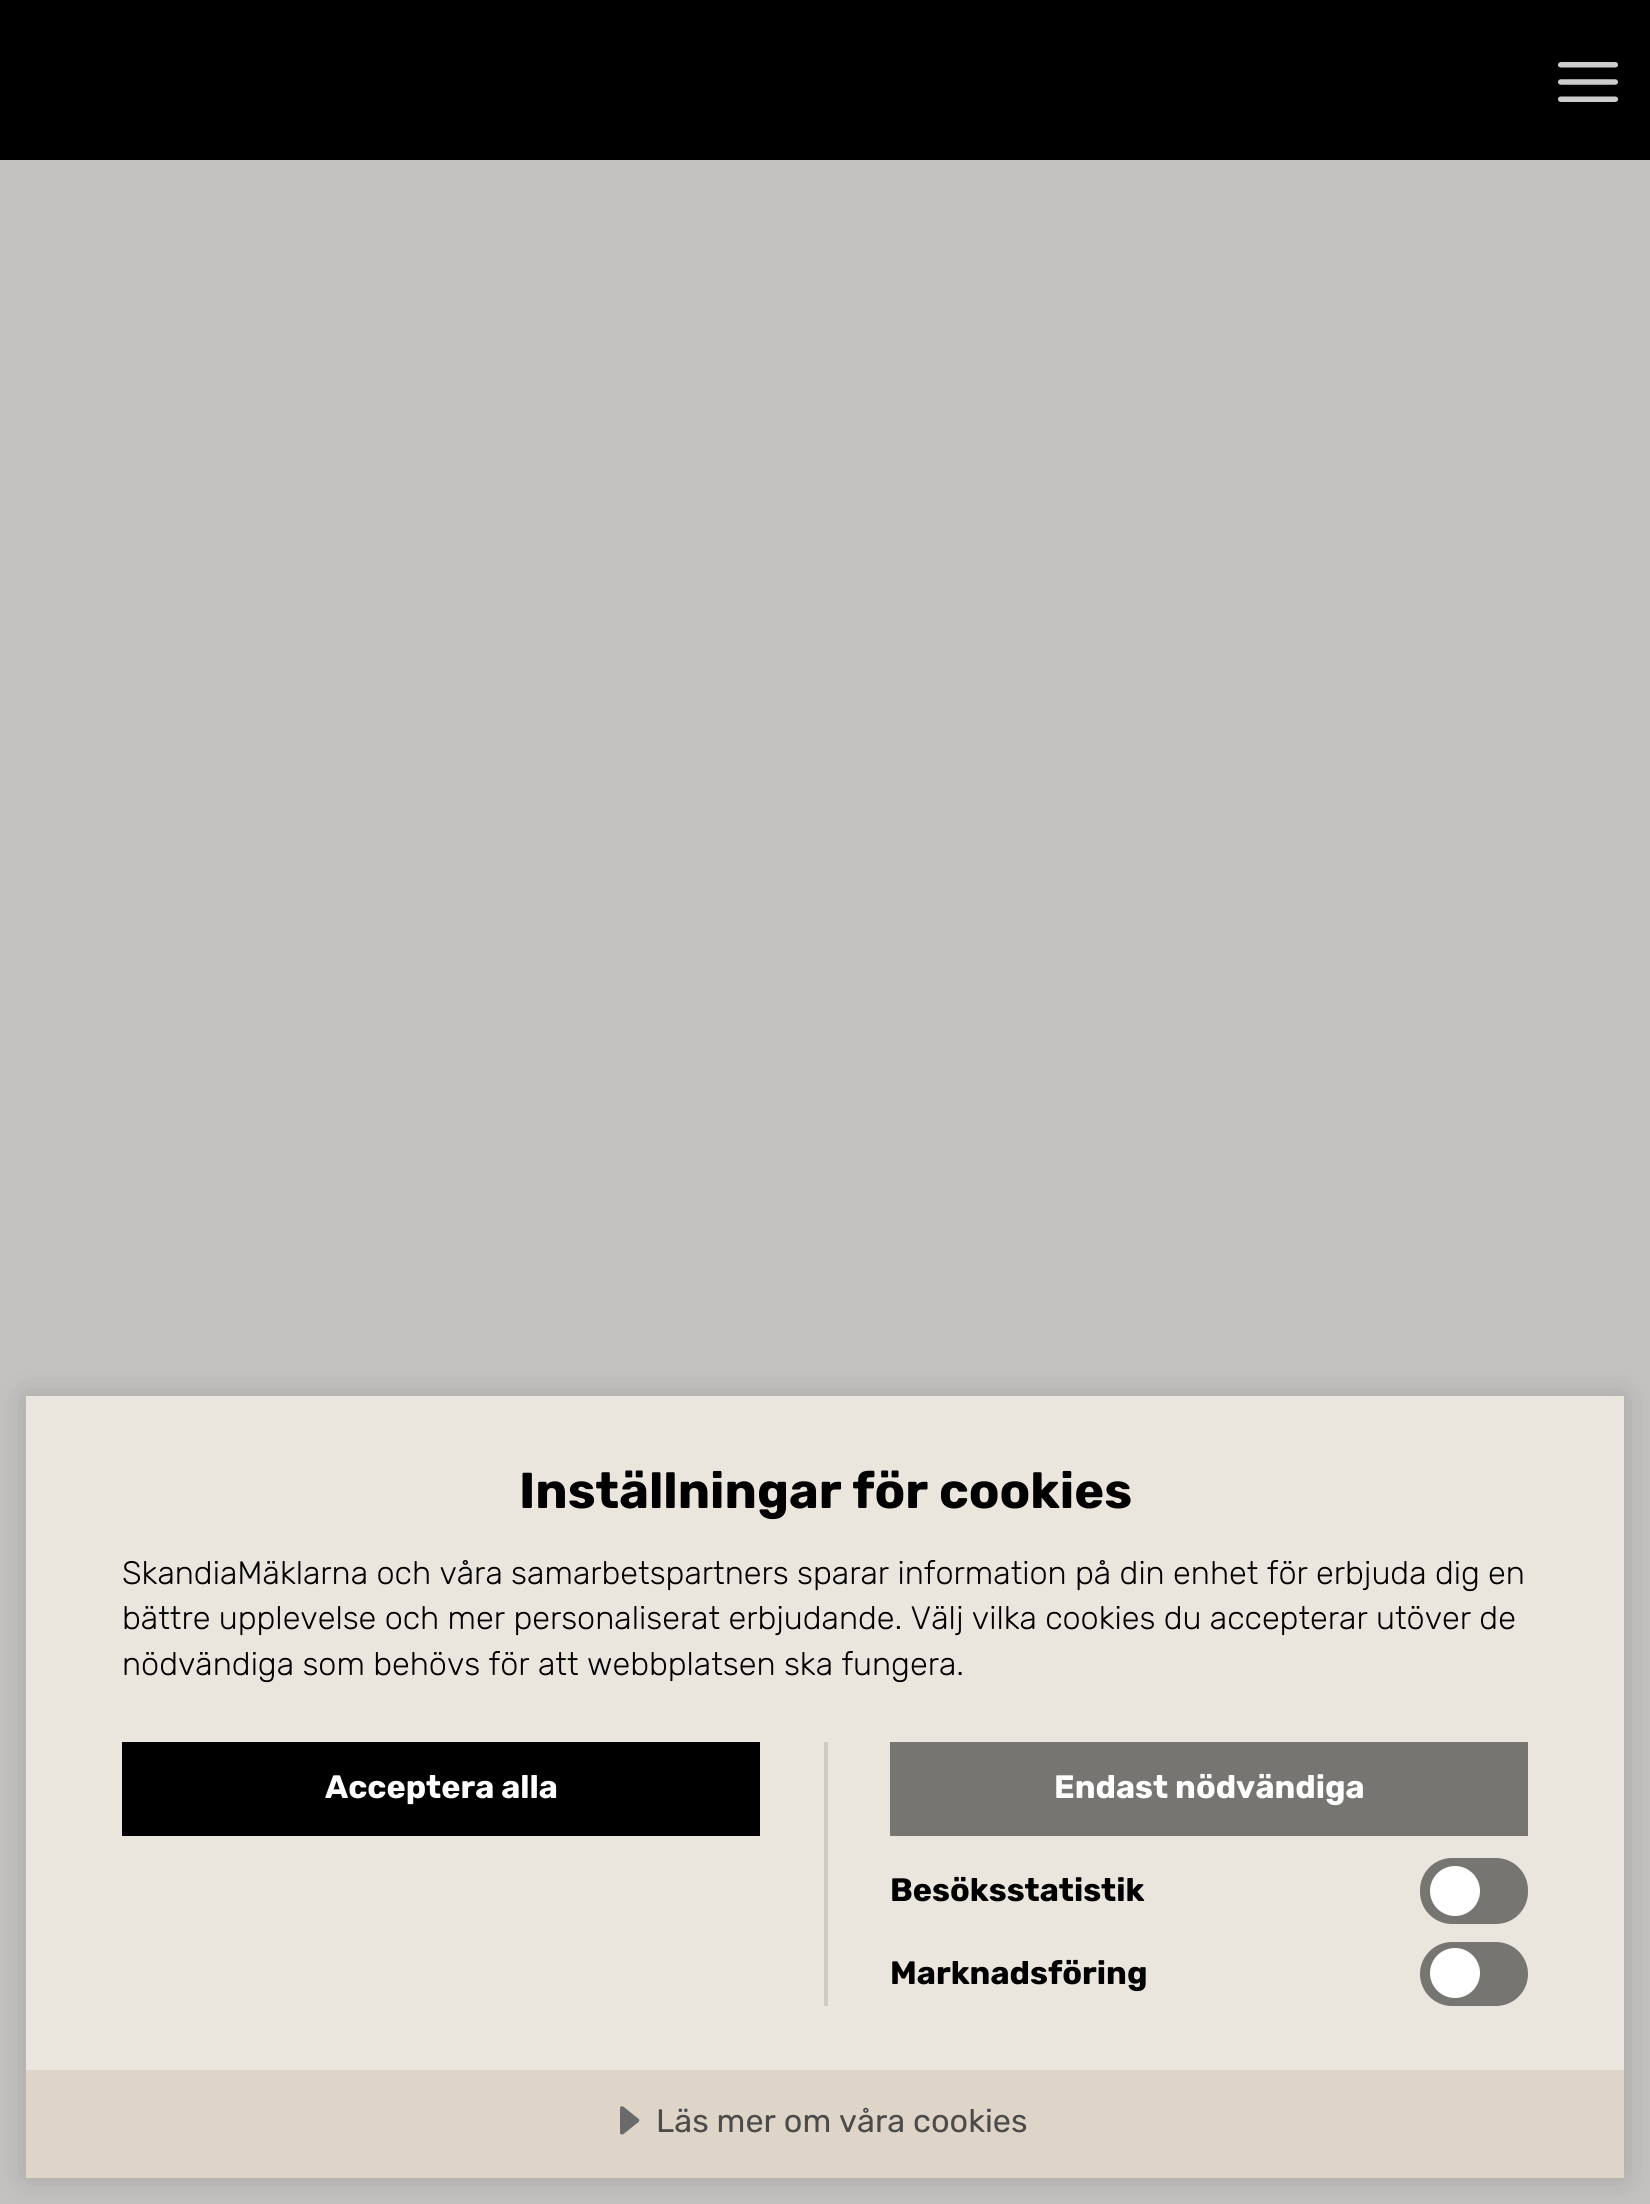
#include <cairo/cairo.h>
#include <math.h>
#include <stddef.h>


static void rounded_rect(cairo_t *cr, double x, double y, double w, double h, double r) {
  cairo_new_sub_path(cr);
  cairo_arc(cr, x + w - r, y + h - r, r, 0, M_PI / 2);
  cairo_arc(cr, x + r, y + h - r, r, M_PI / 2, M_PI);
  cairo_arc(cr, x + r, y + r, r, M_PI, 1.5 * M_PI);
  cairo_arc(cr, x + w - r, y + r, r, 1.5 * M_PI, 2 * M_PI);
  cairo_close_path(cr);
}

static void draw_shadow(cairo_t *cr, double x, double y, double w, double h, double r, double blur, double alpha) {
  cairo_push_group_with_content(cr, CAIRO_CONTENT_ALPHA);
  cairo_set_operator(cr, CAIRO_OPERATOR_SOURCE);
  for (int i = 15; i >= -15 && fmin(w, h) + blur * i / 3 > 0; i -= 2) {
    double e = blur * i / 6;
    cairo_set_source_rgba(cr, 0, 0, 0, alpha * erfc((i - 1) / 8.5) / 2);
    rounded_rect(cr, x - e, y - e, w + 2 * e, h + 2 * e, fmax(0, fmin(r + e + blur * .6, fmin(w, h) / 2 + e)));
    cairo_fill(cr);
  }
  cairo_pattern_t *soft = cairo_pop_group(cr);
  cairo_mask(cr, soft);
  cairo_pattern_destroy(soft);
}

static void draw_image(cairo_t *cr, const char *path, double x, double y, double w, double h) {
  cairo_surface_t *image = cairo_image_surface_create_from_png(path);
  cairo_save(cr);
  cairo_set_source_surface(cr, image, x, y);
  cairo_rectangle(cr, x, y, w, h);
  cairo_fill(cr);
  cairo_restore(cr);
  cairo_surface_destroy(image);
}

static void draw(cairo_t *cr) {
  cairo_set_source_rgb(cr, 196 / 255.0, 194 / 255.0, 192 / 255.0);
  cairo_paint(cr);
  cairo_set_source_rgb(cr, 0, 0, 0);
  cairo_rectangle(cr, 0, 0, 1650, 160);
  cairo_fill(cr);
  draw_image(cr, "images/1.png", 1558, 62, 60, 40);
  cairo_set_source_rgb(cr, 0, 0, 0);
  draw_shadow(cr, 26, 1396, 1598, 782, 0, 16, 0.15);
  cairo_set_source_rgb(cr, 235 / 255.0, 230 / 255.0, 221 / 255.0);
  cairo_rectangle(cr, 26, 1396, 1598, 674);
  cairo_fill(cr);
  cairo_set_source_rgb(cr, 207 / 255.0, 202 / 255.0, 194 / 255.0);
  cairo_rectangle(cr, 824, 1742, 4, 264);
  cairo_fill(cr);
  cairo_set_source_rgb(cr, 0, 0, 0);
  cairo_rectangle(cr, 122, 1742, 638, 94);
  cairo_fill(cr);
  cairo_set_source_rgb(cr, 119 / 255.0, 117 / 255.0, 114 / 255.0);
  cairo_rectangle(cr, 890, 1742, 638, 94);
  cairo_fill(cr);
  rounded_rect(cr, 1420, 1858, 108, 66, 32);
  cairo_fill(cr);
  cairo_set_source_rgb(cr, 1, 1, 1);
  cairo_arc(cr, 1455, 1891, 25, 0, 2 * M_PI);
  cairo_fill(cr);
  cairo_set_source_rgb(cr, 119 / 255.0, 117 / 255.0, 114 / 255.0);
  rounded_rect(cr, 1420, 1942, 108, 64, 32);
  cairo_fill(cr);
  cairo_set_source_rgb(cr, 1, 1, 1);
  cairo_arc(cr, 1455, 1973, 25, 0, 2 * M_PI);
  cairo_fill(cr);
  cairo_set_source_rgb(cr, 222 / 255.0, 212 / 255.0, 200 / 255.0);
  cairo_rectangle(cr, 26, 2070, 1598, 108);
  cairo_fill(cr);
  draw_image(cr, "images/2.png", 620, 2106, 20, 29);
  cairo_select_font_face(cr, "Rubik", CAIRO_FONT_SLANT_NORMAL, CAIRO_FONT_WEIGHT_BOLD);
  cairo_set_font_size(cr, 50.4);
  cairo_set_source_rgb(cr, 0, 0, 0);
  cairo_move_to(cr, 519, 1508);
  cairo_show_text(cr, "Inställningar för cookies");
  cairo_select_font_face(cr, "Rubik Light", CAIRO_FONT_SLANT_NORMAL, CAIRO_FONT_WEIGHT_NORMAL);
  cairo_set_font_size(cr, 32.4);
  cairo_move_to(cr, 122, 1584);
  cairo_show_text(cr, "SkandiaMäklarna och våra samarbetspartners sparar information på din enhet för erbjuda dig en");
  cairo_move_to(cr, 122, 1629);
  cairo_show_text(cr, "bättre upplevelse och mer personaliserat erbjudande. Välj vilka cookies du accepterar utöver de");
  cairo_move_to(cr, 122, 1675);
  cairo_show_text(cr, "nödvändiga som behövs för att webbplatsen ska fungera.");
  cairo_select_font_face(cr, "Rubik", CAIRO_FONT_SLANT_NORMAL, CAIRO_FONT_WEIGHT_BOLD);
  cairo_set_source_rgb(cr, 1, 1, 1);
  cairo_move_to(cr, 325, 1798);
  cairo_show_text(cr, "Acceptera alla");
  cairo_move_to(cr, 1054, 1798);
  cairo_show_text(cr, "Endast nödvändiga");
  cairo_set_source_rgb(cr, 0, 0, 0);
  cairo_move_to(cr, 890, 1901);
  cairo_show_text(cr, "Besöksstatistik");
  cairo_move_to(cr, 890, 1984);
  cairo_show_text(cr, "Marknadsföring");
  cairo_select_font_face(cr, "Rubik", CAIRO_FONT_SLANT_NORMAL, CAIRO_FONT_WEIGHT_NORMAL);
  cairo_set_source_rgb(cr, 75 / 255.0, 75 / 255.0, 75 / 255.0);
  cairo_move_to(cr, 656, 2132);
  cairo_show_text(cr, "Läs mer om våra cookies");
}

int main(void) {
  cairo_surface_t *surface = cairo_image_surface_create(CAIRO_FORMAT_RGB24, 1650, 2204);
  cairo_t *cr = cairo_create(surface);
  cairo_font_options_t *options = cairo_font_options_create();
  cairo_font_options_set_hint_metrics(options, CAIRO_HINT_METRICS_OFF);
  cairo_font_options_set_hint_style(options, CAIRO_HINT_STYLE_NONE);
  cairo_set_font_options(cr, options);
  cairo_set_miter_limit(cr, 4);
  draw(cr);
  cairo_surface_write_to_png(surface, "out.png");
  cairo_font_options_destroy(options);
  cairo_destroy(cr);
  cairo_surface_destroy(surface);
  return 0;
}
